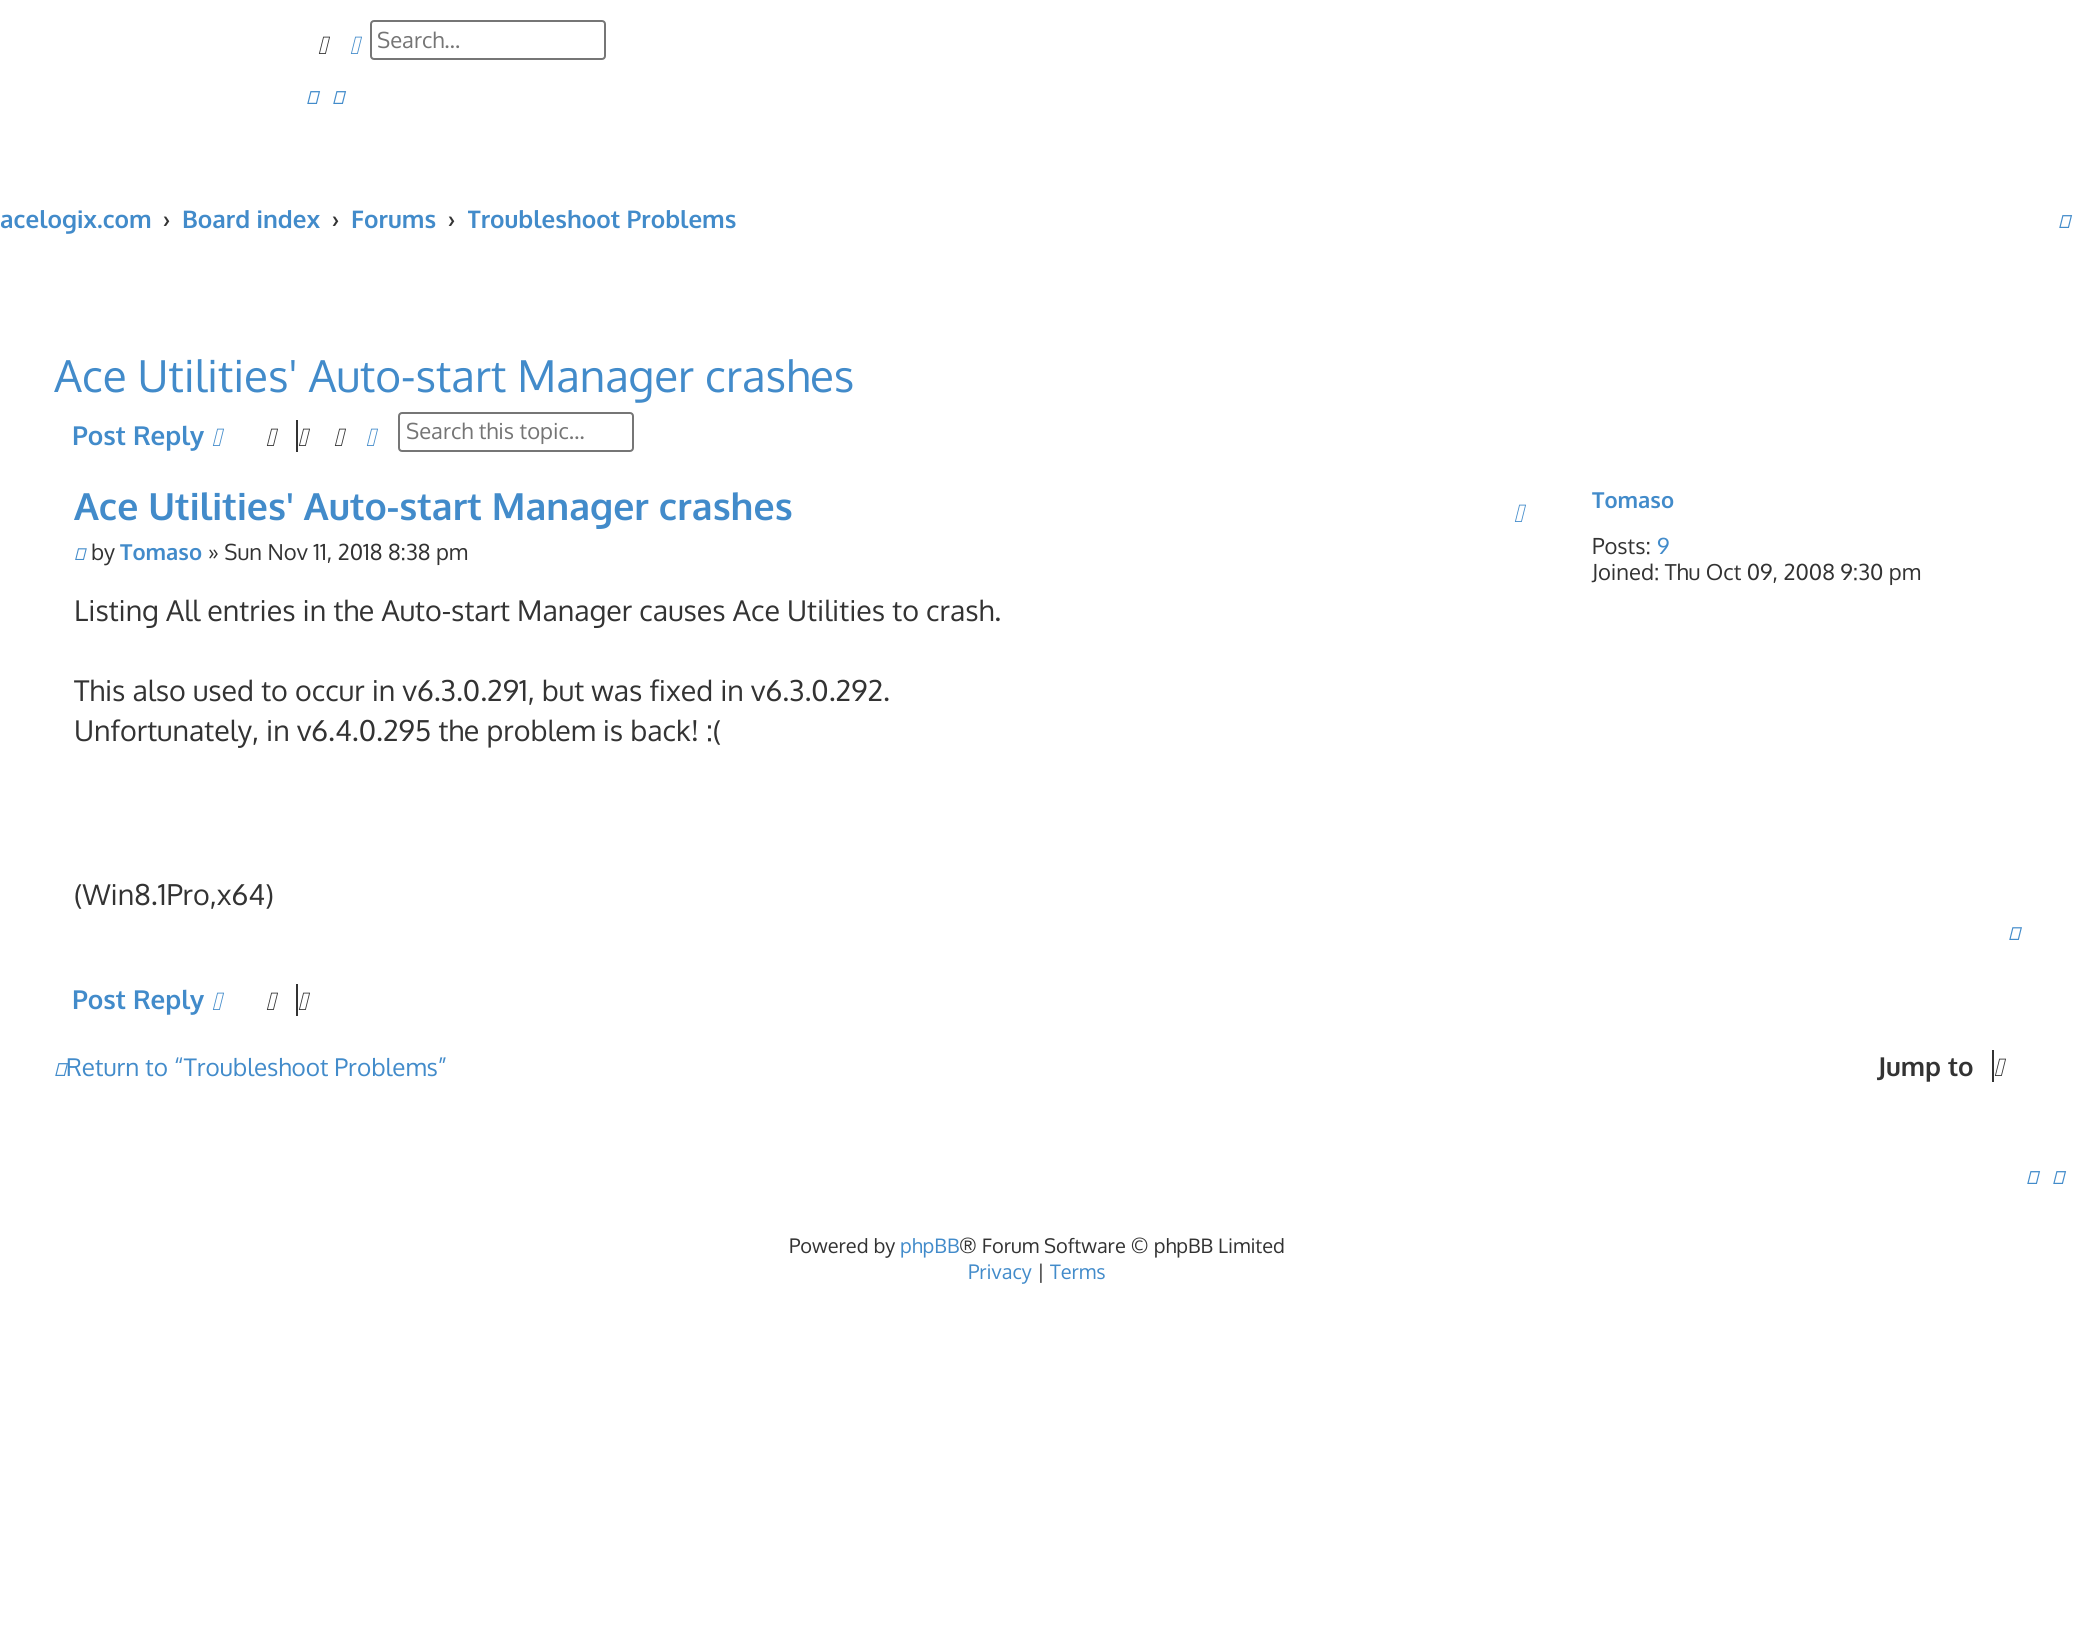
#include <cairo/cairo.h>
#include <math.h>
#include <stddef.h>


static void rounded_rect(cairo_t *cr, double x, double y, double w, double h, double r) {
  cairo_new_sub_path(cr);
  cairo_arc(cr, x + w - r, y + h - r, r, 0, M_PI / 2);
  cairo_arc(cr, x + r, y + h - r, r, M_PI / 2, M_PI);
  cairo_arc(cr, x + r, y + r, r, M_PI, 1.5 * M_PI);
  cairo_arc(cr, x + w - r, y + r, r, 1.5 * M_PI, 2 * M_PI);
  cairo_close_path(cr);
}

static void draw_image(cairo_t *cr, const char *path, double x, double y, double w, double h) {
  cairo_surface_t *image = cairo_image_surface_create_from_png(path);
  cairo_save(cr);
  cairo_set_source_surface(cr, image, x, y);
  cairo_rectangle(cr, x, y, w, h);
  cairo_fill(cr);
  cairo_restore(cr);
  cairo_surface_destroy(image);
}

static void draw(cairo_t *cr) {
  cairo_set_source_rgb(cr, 1, 1, 1);
  cairo_paint(cr);
  draw_image(cr, "images/1.png", 318, 36, 12, 18);
  draw_image(cr, "images/2.png", 350, 36, 12, 18);
  rounded_rect(cr, 371, 21, 234, 38, 3);
  cairo_set_source_rgb(cr, 118 / 255.0, 118 / 255.0, 118 / 255.0);
  cairo_stroke(cr);
  draw_image(cr, "images/3.png", 307, 91, 14, 13);
  draw_image(cr, "images/3.png", 333, 91, 14, 13);
  draw_image(cr, "images/3.png", 2059, 215, 14, 13);
  draw_image(cr, "images/2.png", 212, 428, 12, 18);
  draw_image(cr, "images/1.png", 266, 428, 12, 18);
  cairo_set_source_rgb(cr, 51 / 255.0, 51 / 255.0, 51 / 255.0);
  cairo_rectangle(cr, 296, 420, 2, 32);
  cairo_fill(cr);
  draw_image(cr, "images/1.png", 298, 428, 12, 18);
  draw_image(cr, "images/1.png", 334, 428, 12, 18);
  draw_image(cr, "images/2.png", 366, 428, 12, 18);
  rounded_rect(cr, 399, 413, 234, 38, 3);
  cairo_set_source_rgb(cr, 118 / 255.0, 118 / 255.0, 118 / 255.0);
  cairo_stroke(cr);
  draw_image(cr, "images/2.png", 1514, 504, 12, 18);
  draw_image(cr, "images/4.png", 75, 548, 12, 12);
  draw_image(cr, "images/5.png", 2009, 927, 13, 13);
  draw_image(cr, "images/2.png", 212, 992, 12, 18);
  draw_image(cr, "images/1.png", 266, 992, 12, 18);
  cairo_set_source_rgb(cr, 51 / 255.0, 51 / 255.0, 51 / 255.0);
  cairo_rectangle(cr, 296, 984, 2, 32);
  cairo_fill(cr);
  draw_image(cr, "images/1.png", 298, 992, 12, 18);
  draw_image(cr, "images/3.png", 55, 1063, 14, 13);
  cairo_rectangle(cr, 1992, 1050, 2, 32);
  cairo_fill(cr);
  draw_image(cr, "images/1.png", 1994, 1058, 12, 18);
  draw_image(cr, "images/3.png", 2027, 1171, 14, 13);
  draw_image(cr, "images/3.png", 2053, 1171, 14, 13);
  cairo_select_font_face(cr, "Oxygen", CAIRO_FONT_SLANT_NORMAL, CAIRO_FONT_WEIGHT_NORMAL);
  cairo_set_font_size(cr, 22);
  cairo_set_source_rgb(cr, 117 / 255.0, 117 / 255.0, 117 / 255.0);
  cairo_move_to(cr, 377, 48);
  cairo_show_text(cr, "Search…");
  cairo_select_font_face(cr, "Oxygen", CAIRO_FONT_SLANT_NORMAL, CAIRO_FONT_WEIGHT_BOLD);
  cairo_set_font_size(cr, 24.25);
  cairo_set_source_rgb(cr, 66 / 255.0, 139 / 255.0, 202 / 255.0);
  cairo_move_to(cr, 0, 228);
  cairo_show_text(cr, "acelogix.com");
  cairo_set_source_rgb(cr, 51 / 255.0, 51 / 255.0, 51 / 255.0);
  cairo_move_to(cr, 163, 228);
  cairo_show_text(cr, "›");
  cairo_set_source_rgb(cr, 66 / 255.0, 139 / 255.0, 202 / 255.0);
  cairo_move_to(cr, 182, 228);
  cairo_show_text(cr, "Board index");
  cairo_set_source_rgb(cr, 51 / 255.0, 51 / 255.0, 51 / 255.0);
  cairo_move_to(cr, 332, 228);
  cairo_show_text(cr, "›");
  cairo_set_source_rgb(cr, 66 / 255.0, 139 / 255.0, 202 / 255.0);
  cairo_move_to(cr, 351, 228);
  cairo_show_text(cr, "Forums");
  cairo_set_source_rgb(cr, 51 / 255.0, 51 / 255.0, 51 / 255.0);
  cairo_move_to(cr, 448, 228);
  cairo_show_text(cr, "›");
  cairo_save(cr);
  cairo_rectangle(cr, 468, 194, 268, 54);
  cairo_clip(cr);
  cairo_set_source_rgb(cr, 66 / 255.0, 139 / 255.0, 202 / 255.0);
  cairo_move_to(cr, 467, 228);
  cairo_show_text(cr, "Troubleshoot Problems");
  cairo_restore(cr);
  cairo_select_font_face(cr, "Oxygen", CAIRO_FONT_SLANT_NORMAL, CAIRO_FONT_WEIGHT_NORMAL);
  cairo_set_font_size(cr, 44);
  cairo_set_source_rgb(cr, 66 / 255.0, 139 / 255.0, 202 / 255.0);
  cairo_move_to(cr, 54, 392);
  cairo_show_text(cr, "Ace Utilities' Auto-start Manager crashes");
  cairo_select_font_face(cr, "Oxygen", CAIRO_FONT_SLANT_NORMAL, CAIRO_FONT_WEIGHT_BOLD);
  cairo_set_font_size(cr, 26);
  cairo_move_to(cr, 72, 445);
  cairo_show_text(cr, "Post Reply");
  cairo_select_font_face(cr, "Oxygen", CAIRO_FONT_SLANT_NORMAL, CAIRO_FONT_WEIGHT_NORMAL);
  cairo_set_font_size(cr, 22);
  cairo_set_source_rgb(cr, 117 / 255.0, 117 / 255.0, 117 / 255.0);
  cairo_move_to(cr, 406, 439);
  cairo_show_text(cr, "Search this topic…");
  cairo_select_font_face(cr, "Oxygen", CAIRO_FONT_SLANT_NORMAL, CAIRO_FONT_WEIGHT_BOLD);
  cairo_set_font_size(cr, 37.4);
  cairo_set_source_rgb(cr, 66 / 255.0, 139 / 255.0, 202 / 255.0);
  cairo_move_to(cr, 74, 520);
  cairo_show_text(cr, "Ace Utilities' Auto-start Manager crashes");
  cairo_select_font_face(cr, "Oxygen", CAIRO_FONT_SLANT_NORMAL, CAIRO_FONT_WEIGHT_NORMAL);
  cairo_set_font_size(cr, 22);
  cairo_set_source_rgb(cr, 51 / 255.0, 51 / 255.0, 51 / 255.0);
  cairo_move_to(cr, 91, 560);
  cairo_show_text(cr, "by");
  cairo_select_font_face(cr, "Oxygen", CAIRO_FONT_SLANT_NORMAL, CAIRO_FONT_WEIGHT_BOLD);
  cairo_set_source_rgb(cr, 66 / 255.0, 139 / 255.0, 202 / 255.0);
  cairo_move_to(cr, 120, 560);
  cairo_show_text(cr, "Tomaso");
  cairo_select_font_face(cr, "Oxygen", CAIRO_FONT_SLANT_NORMAL, CAIRO_FONT_WEIGHT_NORMAL);
  cairo_set_source_rgb(cr, 51 / 255.0, 51 / 255.0, 51 / 255.0);
  cairo_move_to(cr, 208, 560);
  cairo_show_text(cr, "» Sun Nov 11, 2018 8:38 pm");
  cairo_set_font_size(cr, 28.6);
  cairo_move_to(cr, 74, 621);
  cairo_show_text(cr, "Listing All entries in the Auto-start Manager causes Ace Utilities to crash.");
  cairo_move_to(cr, 74, 701);
  cairo_show_text(cr, "This also used to occur in v6.3.0.291, but was fixed in v6.3.0.292.");
  cairo_move_to(cr, 74, 741);
  cairo_show_text(cr, "Unfortunately, in v6.4.0.295 the problem is back! :(");
  cairo_move_to(cr, 74, 905);
  cairo_show_text(cr, "(Win8.1Pro,x64)");
  cairo_select_font_face(cr, "Oxygen", CAIRO_FONT_SLANT_NORMAL, CAIRO_FONT_WEIGHT_BOLD);
  cairo_set_font_size(cr, 22);
  cairo_set_source_rgb(cr, 66 / 255.0, 139 / 255.0, 202 / 255.0);
  cairo_move_to(cr, 1592, 508);
  cairo_show_text(cr, "Tomaso");
  cairo_select_font_face(cr, "Oxygen", CAIRO_FONT_SLANT_NORMAL, CAIRO_FONT_WEIGHT_NORMAL);
  cairo_set_source_rgb(cr, 51 / 255.0, 51 / 255.0, 51 / 255.0);
  cairo_move_to(cr, 1592, 554);
  cairo_show_text(cr, "Posts:");
  cairo_set_source_rgb(cr, 66 / 255.0, 139 / 255.0, 202 / 255.0);
  cairo_move_to(cr, 1657, 554);
  cairo_show_text(cr, "9");
  cairo_set_source_rgb(cr, 51 / 255.0, 51 / 255.0, 51 / 255.0);
  cairo_move_to(cr, 1592, 580);
  cairo_show_text(cr, "Joined: Thu Oct 09, 2008 9:30 pm");
  cairo_select_font_face(cr, "Oxygen", CAIRO_FONT_SLANT_NORMAL, CAIRO_FONT_WEIGHT_BOLD);
  cairo_set_font_size(cr, 26);
  cairo_set_source_rgb(cr, 66 / 255.0, 139 / 255.0, 202 / 255.0);
  cairo_move_to(cr, 72, 1009);
  cairo_show_text(cr, "Post Reply");
  cairo_select_font_face(cr, "Oxygen", CAIRO_FONT_SLANT_NORMAL, CAIRO_FONT_WEIGHT_NORMAL);
  cairo_set_font_size(cr, 24.25);
  cairo_move_to(cr, 66, 1076);
  cairo_show_text(cr, "Return to “Troubleshoot Problems”");
  cairo_select_font_face(cr, "Oxygen", CAIRO_FONT_SLANT_NORMAL, CAIRO_FONT_WEIGHT_BOLD);
  cairo_set_font_size(cr, 26);
  cairo_set_source_rgb(cr, 51 / 255.0, 51 / 255.0, 51 / 255.0);
  cairo_move_to(cr, 1878, 1076);
  cairo_show_text(cr, "Jump to");
  cairo_select_font_face(cr, "Oxygen", CAIRO_FONT_SLANT_NORMAL, CAIRO_FONT_WEIGHT_NORMAL);
  cairo_set_font_size(cr, 20);
  cairo_move_to(cr, 789, 1253);
  cairo_show_text(cr, "Powered by");
  cairo_set_source_rgb(cr, 66 / 255.0, 139 / 255.0, 202 / 255.0);
  cairo_move_to(cr, 900, 1253);
  cairo_show_text(cr, "phpBB");
  cairo_set_source_rgb(cr, 51 / 255.0, 51 / 255.0, 51 / 255.0);
  cairo_move_to(cr, 959, 1253);
  cairo_show_text(cr, "® Forum Software © phpBB Limited");
  cairo_set_source_rgb(cr, 66 / 255.0, 139 / 255.0, 202 / 255.0);
  cairo_move_to(cr, 968, 1279);
  cairo_show_text(cr, "Privacy");
  cairo_set_source_rgb(cr, 51 / 255.0, 51 / 255.0, 51 / 255.0);
  cairo_move_to(cr, 1037, 1279);
  cairo_show_text(cr, "|");
  cairo_set_source_rgb(cr, 66 / 255.0, 139 / 255.0, 202 / 255.0);
  cairo_move_to(cr, 1050, 1279);
  cairo_show_text(cr, "Terms");
}

int main(void) {
  cairo_surface_t *surface = cairo_image_surface_create(CAIRO_FORMAT_RGB24, 2074, 1644);
  cairo_t *cr = cairo_create(surface);
  cairo_font_options_t *options = cairo_font_options_create();
  cairo_font_options_set_hint_metrics(options, CAIRO_HINT_METRICS_OFF);
  cairo_font_options_set_hint_style(options, CAIRO_HINT_STYLE_NONE);
  cairo_set_font_options(cr, options);
  cairo_set_miter_limit(cr, 4);
  draw(cr);
  cairo_surface_write_to_png(surface, "out.png");
  cairo_font_options_destroy(options);
  cairo_destroy(cr);
  cairo_surface_destroy(surface);
  return 0;
}
